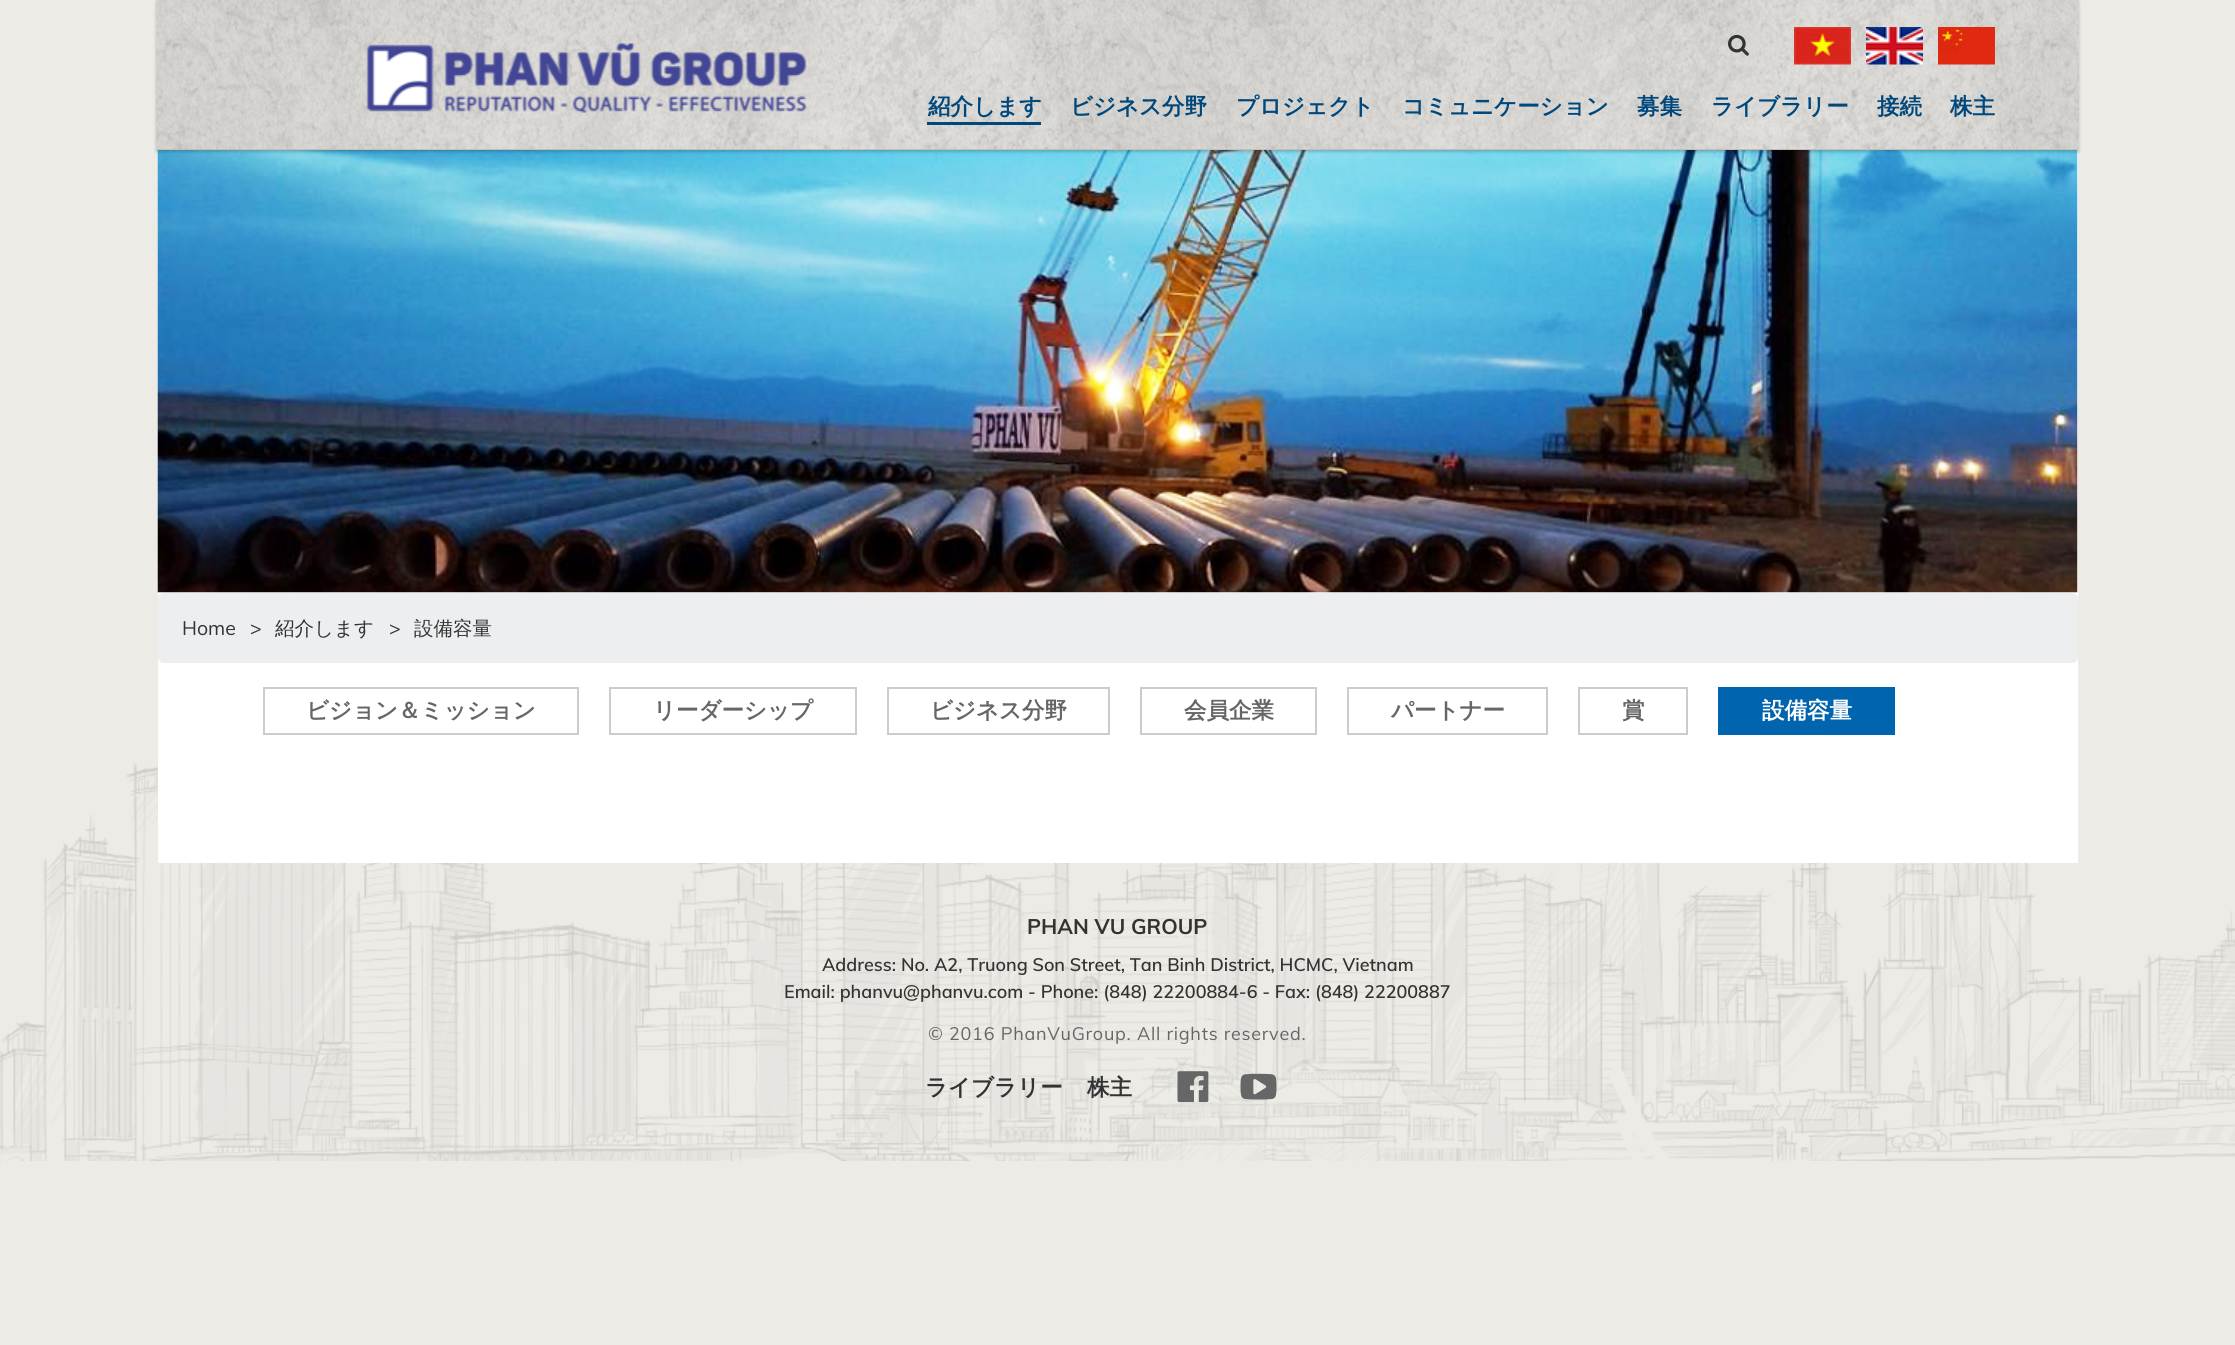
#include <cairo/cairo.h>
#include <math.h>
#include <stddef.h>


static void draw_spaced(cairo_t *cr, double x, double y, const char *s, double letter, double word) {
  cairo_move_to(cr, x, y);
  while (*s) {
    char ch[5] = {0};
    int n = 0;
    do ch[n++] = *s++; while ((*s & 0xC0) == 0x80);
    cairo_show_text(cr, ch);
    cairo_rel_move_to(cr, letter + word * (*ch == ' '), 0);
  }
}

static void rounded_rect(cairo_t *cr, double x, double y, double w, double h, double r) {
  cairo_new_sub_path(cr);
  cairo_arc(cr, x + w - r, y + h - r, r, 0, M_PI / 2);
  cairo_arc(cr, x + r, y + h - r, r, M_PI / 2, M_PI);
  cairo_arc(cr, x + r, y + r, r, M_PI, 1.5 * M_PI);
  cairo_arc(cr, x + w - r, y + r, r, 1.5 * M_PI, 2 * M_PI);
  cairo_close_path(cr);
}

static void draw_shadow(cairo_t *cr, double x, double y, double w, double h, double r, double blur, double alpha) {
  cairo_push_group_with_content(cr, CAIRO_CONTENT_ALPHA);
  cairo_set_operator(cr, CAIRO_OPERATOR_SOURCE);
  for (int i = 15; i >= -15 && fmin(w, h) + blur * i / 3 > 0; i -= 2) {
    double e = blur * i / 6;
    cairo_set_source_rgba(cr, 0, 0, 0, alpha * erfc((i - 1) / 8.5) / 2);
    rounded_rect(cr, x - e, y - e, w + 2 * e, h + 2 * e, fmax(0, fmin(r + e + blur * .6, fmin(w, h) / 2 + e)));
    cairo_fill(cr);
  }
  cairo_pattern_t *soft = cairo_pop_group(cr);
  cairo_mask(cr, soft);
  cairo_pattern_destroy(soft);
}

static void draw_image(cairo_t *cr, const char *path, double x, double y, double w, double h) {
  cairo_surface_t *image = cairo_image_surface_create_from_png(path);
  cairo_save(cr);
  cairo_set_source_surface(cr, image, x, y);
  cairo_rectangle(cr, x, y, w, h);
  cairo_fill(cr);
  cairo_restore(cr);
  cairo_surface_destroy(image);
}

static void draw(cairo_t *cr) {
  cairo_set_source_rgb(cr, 236 / 255.0, 235 / 255.0, 230 / 255.0);
  cairo_paint(cr);
  draw_image(cr, "images/1.png", 0, 762, 2235, 399);
  cairo_set_source_rgb(cr, 1, 1, 1);
  cairo_rectangle(cr, 158, 150, 1920, 713);
  cairo_fill(cr);
  draw_image(cr, "images/8.png", 157, 150, 1921, 443);
  cairo_set_source_rgb(cr, 0, 0, 0);
  draw_shadow(cr, 156, 2, 1923, 150, 0, 1.5, 0.2);
  draw_image(cr, "images/2.png", 156, 0, 1923, 149);
  draw_image(cr, "images/3.png", 366, 43, 441, 70);
  draw_image(cr, "images/4.png", 1728, 34, 21, 22);
  draw_image(cr, "images/5.png", 1794, 27, 57, 38);
  draw_image(cr, "images/6.png", 1866, 27, 57, 38);
  draw_image(cr, "images/7.png", 1938, 27, 57, 38);
  cairo_set_source_rgb(cr, 0, 71 / 255.0, 123 / 255.0);
  cairo_rectangle(cr, 927, 122, 114, 3);
  cairo_fill(cr);
  cairo_set_source_rgb(cr, 236 / 255.0, 238 / 255.0, 239 / 255.0);
  rounded_rect(cr, 158, 593, 1920, 70, 6);
  cairo_fill(cr);
  cairo_rectangle(cr, 264, 688, 314, 46);
  cairo_set_source_rgb(cr, 204 / 255.0, 204 / 255.0, 204 / 255.0);
  cairo_stroke(cr);
  cairo_rectangle(cr, 610, 688, 246, 46);
  cairo_stroke(cr);
  cairo_rectangle(cr, 888, 688, 221, 46);
  cairo_stroke(cr);
  cairo_rectangle(cr, 1141, 688, 175, 46);
  cairo_stroke(cr);
  cairo_rectangle(cr, 1348, 688, 199, 46);
  cairo_stroke(cr);
  cairo_rectangle(cr, 1579, 688, 108, 46);
  cairo_stroke(cr);
  cairo_set_source_rgb(cr, 0, 100 / 255.0, 174 / 255.0);
  cairo_rectangle(cr, 1718, 687, 177, 48);
  cairo_fill(cr);
  draw_image(cr, "images/9.png", 1177, 1071, 32, 32);
  draw_image(cr, "images/10.png", 1240, 1073, 37, 27);
  cairo_select_font_face(cr, "WenQuanYi Zen Hei", CAIRO_FONT_SLANT_NORMAL, CAIRO_FONT_WEIGHT_BOLD);
  cairo_set_font_size(cr, 22.5);
  cairo_set_source_rgb(cr, 0, 71 / 255.0, 123 / 255.0);
  cairo_move_to(cr, 928, 114);
  cairo_show_text(cr, "紹介します");
  cairo_move_to(cr, 1070, 114);
  cairo_show_text(cr, "ビジネス分野");
  cairo_move_to(cr, 1236, 114);
  cairo_show_text(cr, "プロジェクト");
  cairo_move_to(cr, 1402, 114);
  cairo_show_text(cr, "コミュニケーション");
  cairo_move_to(cr, 1637, 114);
  cairo_show_text(cr, "募集");
  cairo_move_to(cr, 1711, 114);
  cairo_show_text(cr, "ライブラリー");
  cairo_move_to(cr, 1877, 114);
  cairo_show_text(cr, "接続");
  cairo_move_to(cr, 1950, 114);
  cairo_show_text(cr, "株主");
  cairo_select_font_face(cr, "Muli", CAIRO_FONT_SLANT_NORMAL, CAIRO_FONT_WEIGHT_NORMAL);
  cairo_set_font_size(cr, 19.5);
  cairo_set_source_rgb(cr, 51 / 255.0, 51 / 255.0, 51 / 255.0);
  cairo_move_to(cr, 182, 635);
  cairo_show_text(cr, "Home");
  cairo_move_to(cr, 250, 635);
  cairo_show_text(cr, ">");
  cairo_select_font_face(cr, "WenQuanYi Zen Hei Medium", CAIRO_FONT_SLANT_NORMAL, CAIRO_FONT_WEIGHT_NORMAL);
  cairo_move_to(cr, 275, 635);
  cairo_show_text(cr, "紹介します");
  cairo_select_font_face(cr, "Muli", CAIRO_FONT_SLANT_NORMAL, CAIRO_FONT_WEIGHT_NORMAL);
  cairo_move_to(cr, 389, 635);
  cairo_show_text(cr, ">");
  cairo_select_font_face(cr, "WenQuanYi Zen Hei Medium", CAIRO_FONT_SLANT_NORMAL, CAIRO_FONT_WEIGHT_NORMAL);
  cairo_move_to(cr, 414, 635);
  cairo_show_text(cr, "設備容量");
  cairo_select_font_face(cr, "WenQuanYi Zen Hei", CAIRO_FONT_SLANT_NORMAL, CAIRO_FONT_WEIGHT_BOLD);
  cairo_set_font_size(cr, 22.5);
  cairo_set_source_rgb(cr, 102 / 255.0, 102 / 255.0, 102 / 255.0);
  cairo_move_to(cr, 306, 718);
  cairo_show_text(cr, "ビジョン＆ミッション");
  cairo_move_to(cr, 653, 718);
  cairo_show_text(cr, "リーダーシップ");
  cairo_move_to(cr, 930, 718);
  cairo_show_text(cr, "ビジネス分野");
  cairo_move_to(cr, 1184, 718);
  cairo_show_text(cr, "会員企業");
  cairo_move_to(cr, 1391, 718);
  cairo_show_text(cr, "パートナー");
  cairo_move_to(cr, 1622, 718);
  cairo_show_text(cr, "賞");
  cairo_set_source_rgb(cr, 1, 1, 1);
  cairo_move_to(cr, 1762, 718);
  cairo_show_text(cr, "設備容量");
  cairo_select_font_face(cr, "Muli", CAIRO_FONT_SLANT_NORMAL, CAIRO_FONT_WEIGHT_BOLD);
  cairo_set_font_size(cr, 21);
  cairo_set_source_rgb(cr, 51 / 255.0, 51 / 255.0, 51 / 255.0);
  cairo_move_to(cr, 1027, 934);
  cairo_show_text(cr, "PHAN VU GROUP");
  cairo_select_font_face(cr, "Muli SemiBold", CAIRO_FONT_SLANT_NORMAL, CAIRO_FONT_WEIGHT_NORMAL);
  cairo_set_font_size(cr, 18);
  cairo_move_to(cr, 822, 971);
  cairo_show_text(cr, "Address: No. A2, Truong Son Street, Tan Binh District, HCMC, Vietnam");
  cairo_move_to(cr, 784, 998);
  cairo_show_text(cr, "Email: phanvu@phanvu.com - Phone: (848) 22200884-6 - Fax: (848) 22200887");
  cairo_select_font_face(cr, "Muli", CAIRO_FONT_SLANT_NORMAL, CAIRO_FONT_WEIGHT_NORMAL);
  cairo_set_source_rgb(cr, 102 / 255.0, 102 / 255.0, 102 / 255.0);
  draw_spaced(cr, 928, 1040, "© 2016 PhanVuGroup. All rights reserved.", 0.75, 0);
  cairo_select_font_face(cr, "WenQuanYi Zen Hei", CAIRO_FONT_SLANT_NORMAL, CAIRO_FONT_WEIGHT_BOLD);
  cairo_set_font_size(cr, 22.5);
  cairo_set_source_rgb(cr, 51 / 255.0, 51 / 255.0, 51 / 255.0);
  cairo_move_to(cr, 925, 1095);
  cairo_show_text(cr, "ライブラリー");
  cairo_move_to(cr, 1087, 1095);
  cairo_show_text(cr, "株主");
}

int main(void) {
  cairo_surface_t *surface = cairo_image_surface_create(CAIRO_FORMAT_RGB24, 2235, 1345);
  cairo_t *cr = cairo_create(surface);
  cairo_font_options_t *options = cairo_font_options_create();
  cairo_font_options_set_hint_metrics(options, CAIRO_HINT_METRICS_OFF);
  cairo_font_options_set_hint_style(options, CAIRO_HINT_STYLE_NONE);
  cairo_set_font_options(cr, options);
  cairo_set_miter_limit(cr, 4);
  draw(cr);
  cairo_surface_write_to_png(surface, "out.png");
  cairo_font_options_destroy(options);
  cairo_destroy(cr);
  cairo_surface_destroy(surface);
  return 0;
}
